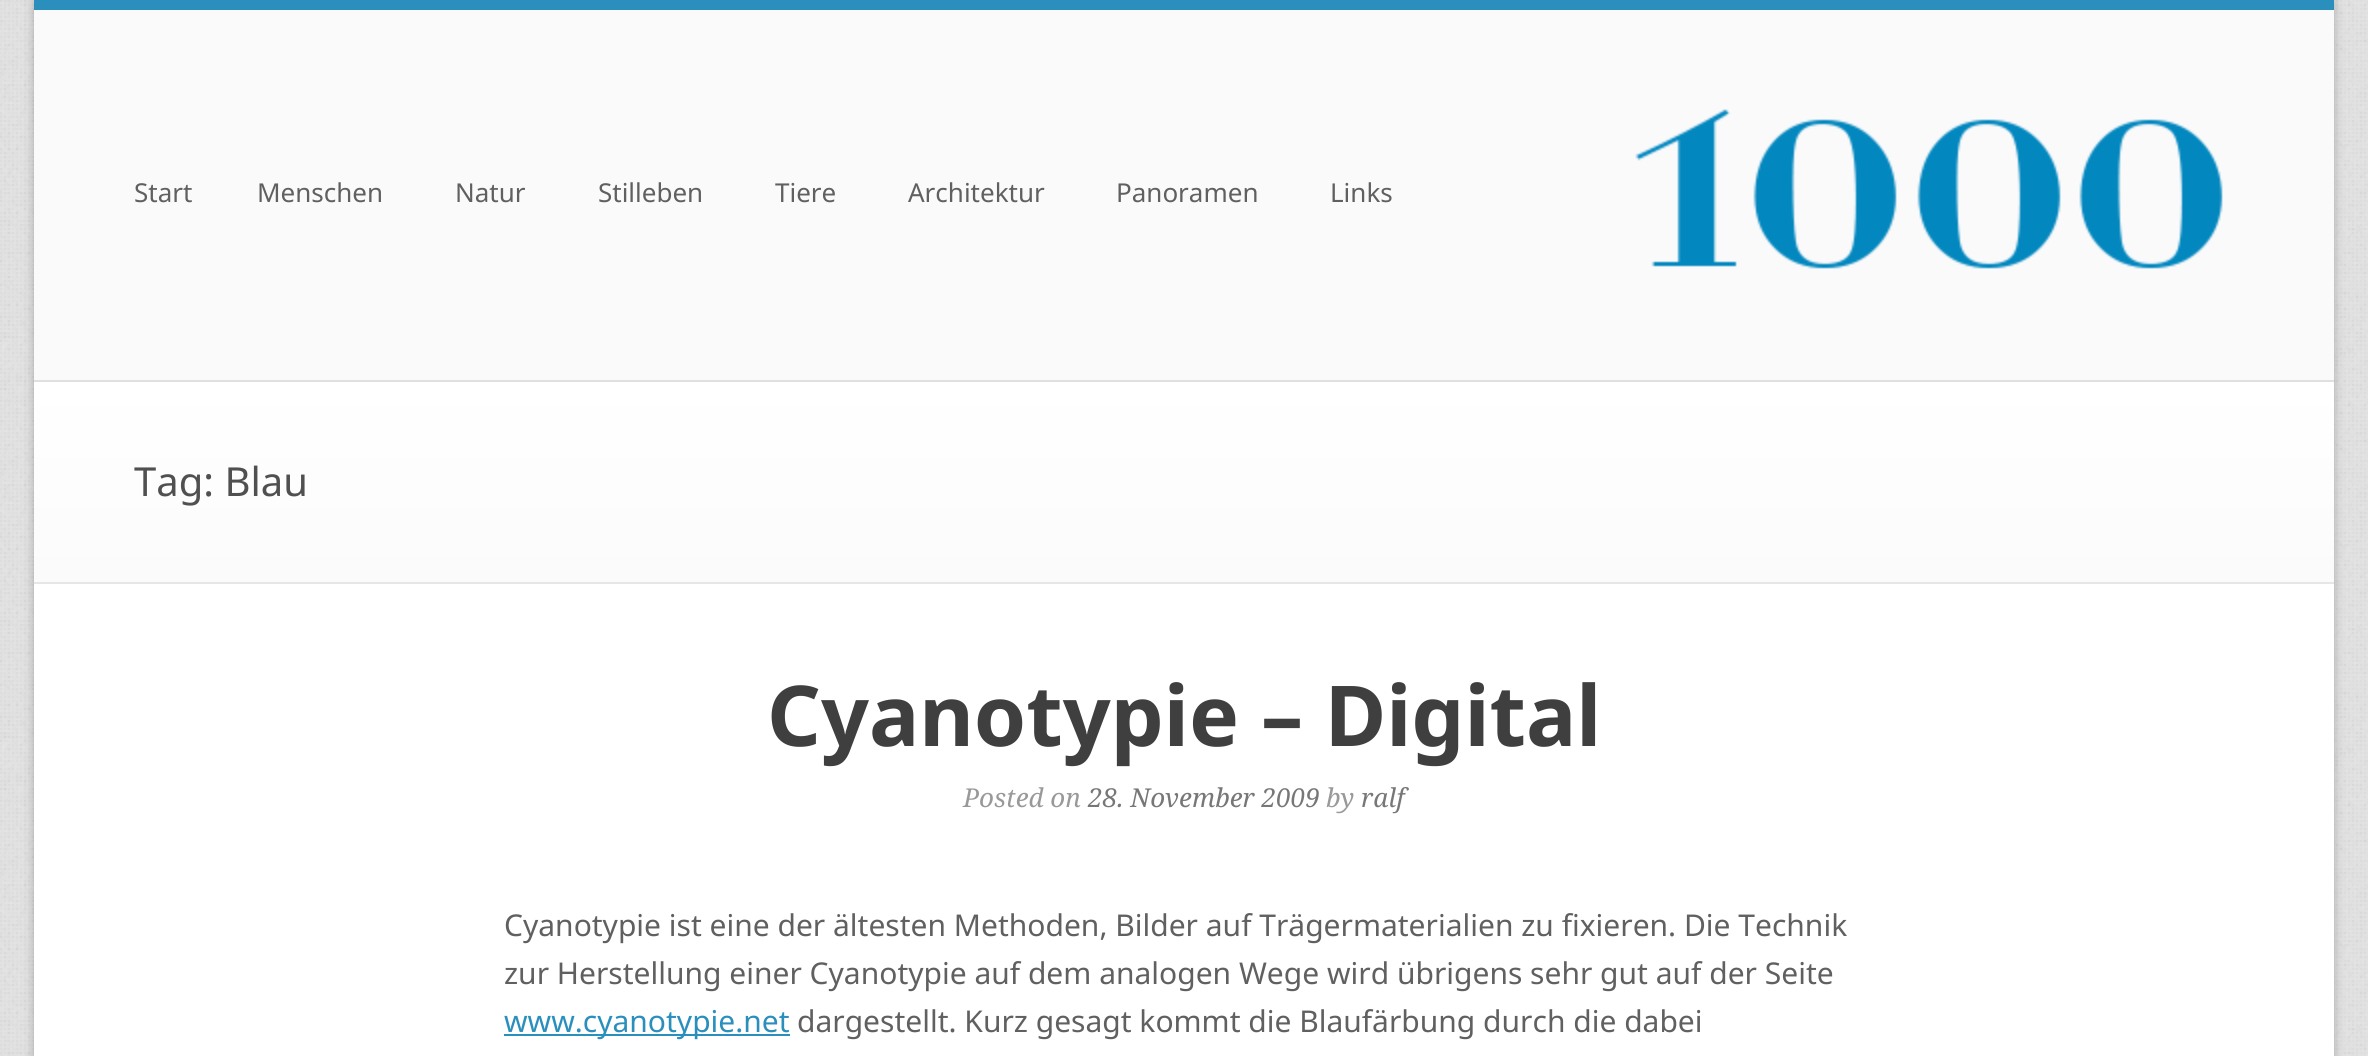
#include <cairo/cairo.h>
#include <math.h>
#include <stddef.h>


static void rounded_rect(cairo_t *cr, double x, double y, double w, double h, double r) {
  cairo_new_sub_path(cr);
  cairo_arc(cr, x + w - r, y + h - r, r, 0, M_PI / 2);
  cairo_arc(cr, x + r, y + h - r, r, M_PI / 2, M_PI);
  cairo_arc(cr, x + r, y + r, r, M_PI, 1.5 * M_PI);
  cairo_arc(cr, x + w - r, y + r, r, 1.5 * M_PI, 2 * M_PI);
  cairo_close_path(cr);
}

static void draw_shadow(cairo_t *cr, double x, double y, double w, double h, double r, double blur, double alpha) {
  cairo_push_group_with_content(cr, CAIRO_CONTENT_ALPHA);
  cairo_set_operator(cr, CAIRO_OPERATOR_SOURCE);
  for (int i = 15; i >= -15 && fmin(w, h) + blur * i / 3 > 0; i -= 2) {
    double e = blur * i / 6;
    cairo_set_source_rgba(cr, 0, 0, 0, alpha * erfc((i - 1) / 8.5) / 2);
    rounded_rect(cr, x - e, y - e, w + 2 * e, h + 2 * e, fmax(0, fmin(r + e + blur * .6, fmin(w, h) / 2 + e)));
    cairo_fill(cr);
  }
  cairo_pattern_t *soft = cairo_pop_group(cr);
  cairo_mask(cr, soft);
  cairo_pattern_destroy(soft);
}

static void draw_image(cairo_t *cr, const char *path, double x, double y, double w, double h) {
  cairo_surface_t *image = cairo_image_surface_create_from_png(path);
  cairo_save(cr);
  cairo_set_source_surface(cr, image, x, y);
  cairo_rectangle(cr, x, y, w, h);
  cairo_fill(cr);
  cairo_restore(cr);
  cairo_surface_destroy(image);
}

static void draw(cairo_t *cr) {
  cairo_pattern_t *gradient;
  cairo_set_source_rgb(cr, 1, 1, 1);
  cairo_paint(cr);
  draw_image(cr, "images/1.png", 0, 0, 2368, 1056);
  cairo_set_source_rgb(cr, 0, 0, 0);
  draw_shadow(cr, 34, 2, 2300, 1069, 0, 5, 0.25);
  cairo_set_source_rgb(cr, 1, 1, 1);
  cairo_rectangle(cr, 34, 584, 2300, 472);
  cairo_fill(cr);
  cairo_set_source_rgb(cr, 42 / 255.0, 143 / 255.0, 189 / 255.0);
  cairo_rectangle(cr, 34, 0, 2300, 10);
  cairo_fill(cr);
  cairo_set_source_rgb(cr, 250 / 255.0, 250 / 255.0, 250 / 255.0);
  cairo_rectangle(cr, 34, 10, 2300, 370);
  cairo_fill(cr);
  cairo_set_source_rgb(cr, 224 / 255.0, 224 / 255.0, 224 / 255.0);
  cairo_rectangle(cr, 34, 380, 2300, 2);
  cairo_fill(cr);
  draw_image(cr, "images/2.png", 1635, 109, 588, 160);
  gradient = cairo_pattern_create_linear(34, 582, 34, 382);
  cairo_pattern_add_color_stop_rgba(gradient, 0, 251 / 255.0, 251 / 255.0, 251 / 255.0, 1);
  cairo_pattern_add_color_stop_rgba(gradient, 1, 1, 1, 1, 1);
  cairo_set_source(cr, gradient);
  cairo_pattern_destroy(gradient);
  cairo_rectangle(cr, 34, 382, 2300, 200);
  cairo_fill(cr);
  cairo_set_source_rgb(cr, 230 / 255.0, 230 / 255.0, 230 / 255.0);
  cairo_rectangle(cr, 34, 582, 2300, 2);
  cairo_fill(cr);
  cairo_set_source_rgb(cr, 42 / 255.0, 143 / 255.0, 189 / 255.0);
  cairo_rectangle(cr, 504, 1034, 286, 2);
  cairo_fill(cr);
  cairo_select_font_face(cr, "Noto Sans", CAIRO_FONT_SLANT_NORMAL, CAIRO_FONT_WEIGHT_NORMAL);
  cairo_set_font_size(cr, 26);
  cairo_set_source_rgb(cr, 96 / 255.0, 96 / 255.0, 96 / 255.0);
  cairo_move_to(cr, 134, 202);
  cairo_show_text(cr, "Start");
  cairo_move_to(cr, 257, 202);
  cairo_show_text(cr, "Menschen");
  cairo_move_to(cr, 455, 202);
  cairo_show_text(cr, "Natur");
  cairo_move_to(cr, 598, 202);
  cairo_show_text(cr, "Stilleben");
  cairo_move_to(cr, 775, 202);
  cairo_show_text(cr, "Tiere");
  cairo_move_to(cr, 908, 202);
  cairo_show_text(cr, "Architektur");
  cairo_move_to(cr, 1116, 202);
  cairo_show_text(cr, "Panoramen");
  cairo_move_to(cr, 1330, 202);
  cairo_show_text(cr, "Links");
  cairo_set_font_size(cr, 40);
  cairo_set_source_rgb(cr, 80 / 255.0, 80 / 255.0, 80 / 255.0);
  cairo_move_to(cr, 134, 496);
  cairo_show_text(cr, "Tag: Blau");
  cairo_select_font_face(cr, "Noto Sans", CAIRO_FONT_SLANT_NORMAL, CAIRO_FONT_WEIGHT_BOLD);
  cairo_set_font_size(cr, 84);
  cairo_set_source_rgb(cr, 63 / 255.0, 63 / 255.0, 63 / 255.0);
  cairo_move_to(cr, 767, 746);
  cairo_show_text(cr, "Cyanotypie – Digital");
  cairo_select_font_face(cr, "Noto Serif", CAIRO_FONT_SLANT_ITALIC, CAIRO_FONT_WEIGHT_NORMAL);
  cairo_set_font_size(cr, 26);
  cairo_set_source_rgb(cr, 153 / 255.0, 153 / 255.0, 153 / 255.0);
  cairo_move_to(cr, 963, 807);
  cairo_show_text(cr, "Posted on");
  cairo_set_source_rgb(cr, 119 / 255.0, 119 / 255.0, 119 / 255.0);
  cairo_move_to(cr, 1088, 807);
  cairo_show_text(cr, "28. November 2009");
  cairo_set_source_rgb(cr, 153 / 255.0, 153 / 255.0, 153 / 255.0);
  cairo_move_to(cr, 1326, 807);
  cairo_show_text(cr, "by");
  cairo_set_source_rgb(cr, 119 / 255.0, 119 / 255.0, 119 / 255.0);
  cairo_move_to(cr, 1361, 807);
  cairo_show_text(cr, "ralf");
  cairo_select_font_face(cr, "Noto Sans", CAIRO_FONT_SLANT_NORMAL, CAIRO_FONT_WEIGHT_NORMAL);
  cairo_set_font_size(cr, 30);
  cairo_set_source_rgb(cr, 96 / 255.0, 96 / 255.0, 96 / 255.0);
  cairo_move_to(cr, 504, 936);
  cairo_show_text(cr, "Cyanotypie ist eine der ältesten Methoden, Bilder auf Trägermaterialien zu fixieren. Die Technik");
  cairo_move_to(cr, 504, 984);
  cairo_show_text(cr, "zur Herstellung einer Cyanotypie auf dem analogen Wege wird übrigens sehr gut auf der Seite");
  cairo_set_source_rgb(cr, 42 / 255.0, 143 / 255.0, 189 / 255.0);
  cairo_move_to(cr, 504, 1032);
  cairo_show_text(cr, "www.cyanotypie.net");
  cairo_set_source_rgb(cr, 96 / 255.0, 96 / 255.0, 96 / 255.0);
  cairo_move_to(cr, 797, 1032);
  cairo_show_text(cr, "dargestellt. Kurz gesagt kommt die Blaufärbung durch die dabei");
}

int main(void) {
  cairo_surface_t *surface = cairo_image_surface_create(CAIRO_FORMAT_RGB24, 2368, 1056);
  cairo_t *cr = cairo_create(surface);
  cairo_font_options_t *options = cairo_font_options_create();
  cairo_font_options_set_hint_metrics(options, CAIRO_HINT_METRICS_OFF);
  cairo_font_options_set_hint_style(options, CAIRO_HINT_STYLE_NONE);
  cairo_set_font_options(cr, options);
  cairo_set_miter_limit(cr, 4);
  draw(cr);
  cairo_surface_write_to_png(surface, "out.png");
  cairo_font_options_destroy(options);
  cairo_destroy(cr);
  cairo_surface_destroy(surface);
  return 0;
}
